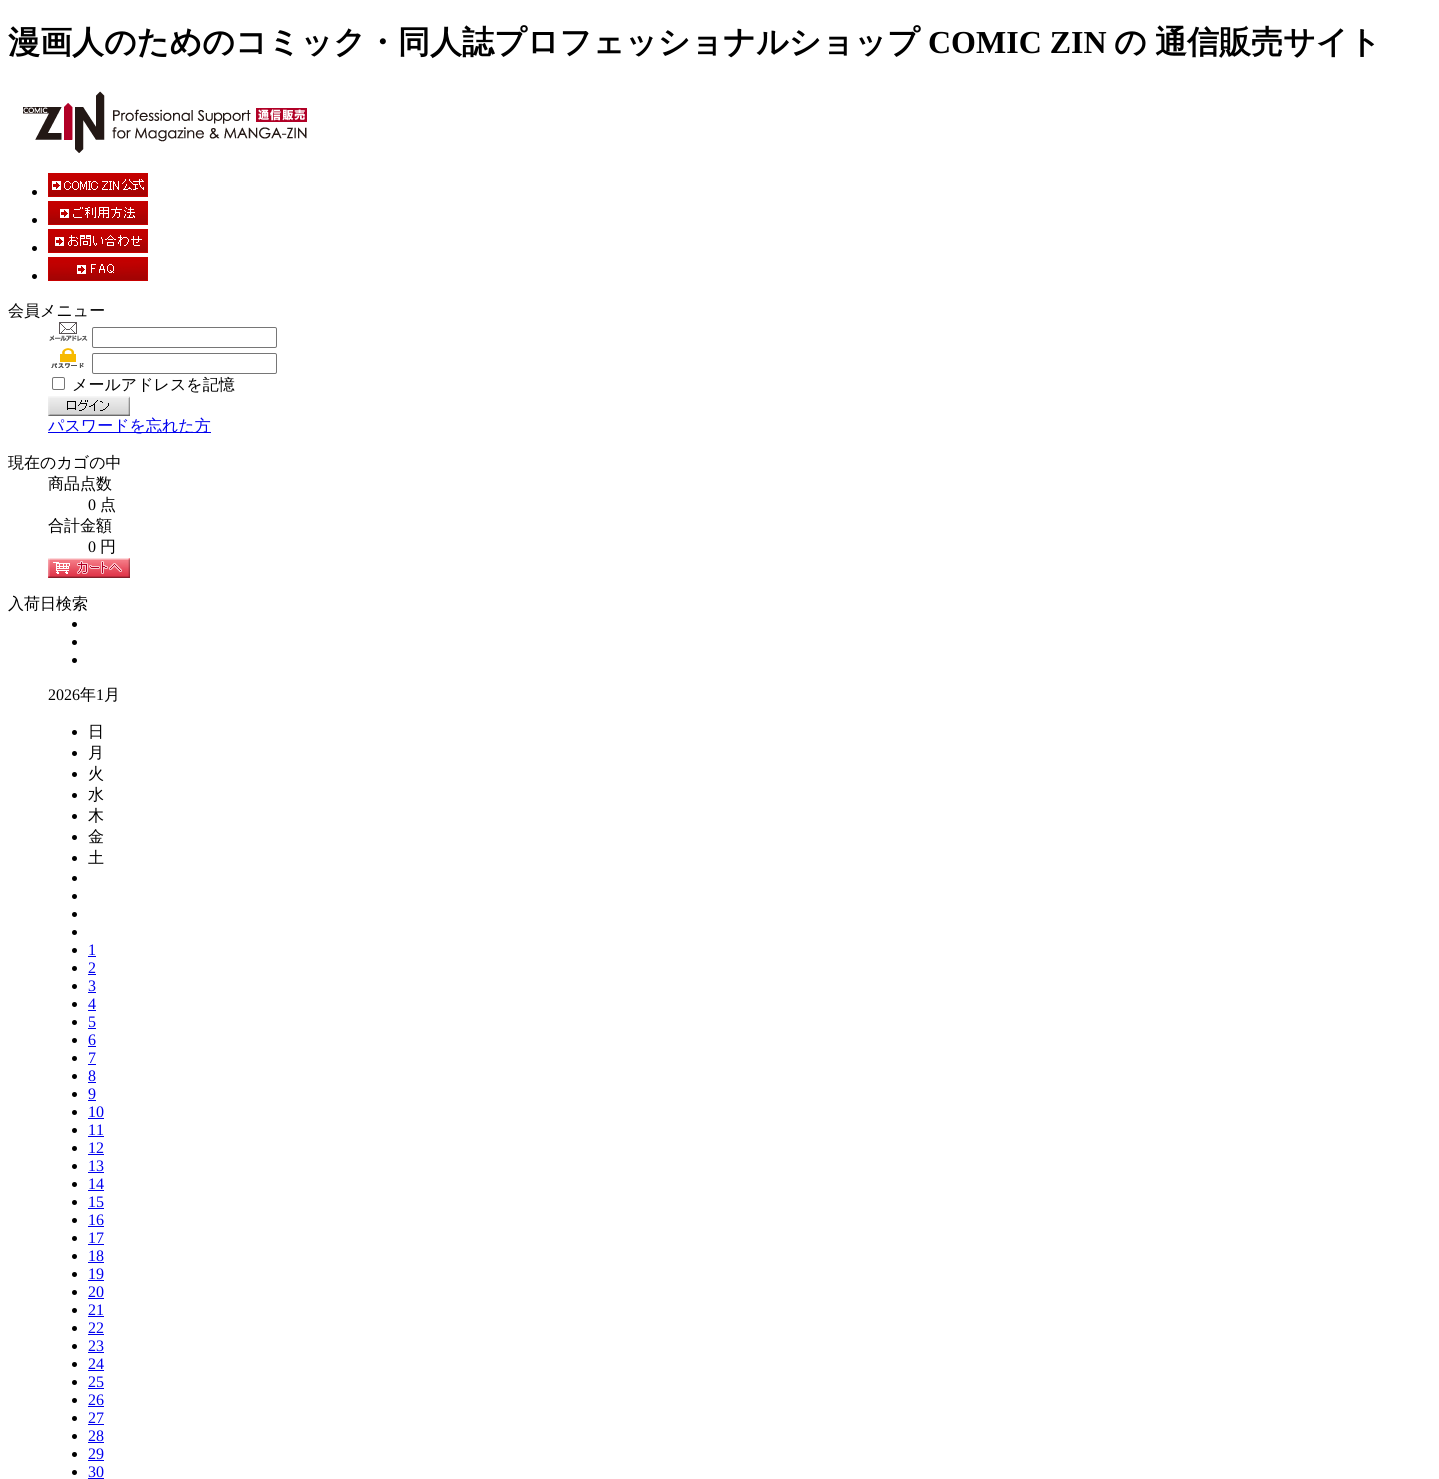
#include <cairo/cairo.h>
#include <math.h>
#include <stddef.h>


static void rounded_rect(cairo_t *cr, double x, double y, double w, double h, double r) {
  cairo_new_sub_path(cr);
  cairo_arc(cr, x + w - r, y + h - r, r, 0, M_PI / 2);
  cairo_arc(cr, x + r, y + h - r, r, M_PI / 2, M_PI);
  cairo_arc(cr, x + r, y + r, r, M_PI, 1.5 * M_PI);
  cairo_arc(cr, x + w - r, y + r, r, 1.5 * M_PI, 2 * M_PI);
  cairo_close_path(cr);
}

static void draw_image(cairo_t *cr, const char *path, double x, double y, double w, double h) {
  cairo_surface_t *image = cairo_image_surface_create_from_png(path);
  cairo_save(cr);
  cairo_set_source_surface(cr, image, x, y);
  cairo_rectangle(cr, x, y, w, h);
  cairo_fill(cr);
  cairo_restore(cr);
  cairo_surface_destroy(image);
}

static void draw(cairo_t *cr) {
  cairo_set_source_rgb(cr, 1, 1, 1);
  cairo_paint(cr);
  draw_image(cr, "images/1.png", 23, 91, 284, 62);
  cairo_set_source_rgb(cr, 0, 0, 0);
  cairo_arc(cr, 34.5, 192.5, 2.5, 0, 2 * M_PI);
  cairo_fill(cr);
  draw_image(cr, "images/2.png", 48, 173, 100, 24);
  cairo_arc(cr, 34.5, 220.5, 2.5, 0, 2 * M_PI);
  cairo_fill(cr);
  draw_image(cr, "images/3.png", 48, 201, 100, 24);
  cairo_arc(cr, 34.5, 248.5, 2.5, 0, 2 * M_PI);
  cairo_fill(cr);
  draw_image(cr, "images/4.png", 48, 229, 100, 24);
  cairo_arc(cr, 34.5, 276.5, 2.5, 0, 2 * M_PI);
  cairo_fill(cr);
  draw_image(cr, "images/5.png", 48, 257, 100, 24);
  draw_image(cr, "images/6.png", 49, 322, 39, 19);
  rounded_rect(cr, 92.5, 327.5, 184, 20, 1.5);
  cairo_set_source_rgb(cr, 118 / 255.0, 118 / 255.0, 118 / 255.0);
  cairo_set_line_width(cr, 1);
  cairo_stroke(cr);
  draw_image(cr, "images/7.png", 51, 348, 33, 20);
  rounded_rect(cr, 92.5, 353.5, 184, 20, 1.5);
  cairo_stroke(cr);
  rounded_rect(cr, 52.5, 377.5, 12, 12, 1.5);
  cairo_stroke(cr);
  draw_image(cr, "images/8.png", 48, 396, 82, 20);
  cairo_set_source_rgb(cr, 0, 0, 238 / 255.0);
  cairo_rectangle(cr, 48, 432, 163, 1);
  cairo_fill(cr);
  draw_image(cr, "images/9.png", 48, 558, 82, 20);
  cairo_set_source_rgb(cr, 0, 0, 0);
  cairo_arc(cr, 74.5, 624.5, 2.5, 0, 2 * M_PI);
  cairo_fill(cr);
  cairo_arc(cr, 74.5, 642.5, 2.5, 0, 2 * M_PI);
  cairo_fill(cr);
  cairo_arc(cr, 74.5, 660.5, 2.5, 0, 2 * M_PI);
  cairo_fill(cr);
  cairo_arc(cr, 74.5, 732.5, 2.5, 0, 2 * M_PI);
  cairo_fill(cr);
  cairo_arc(cr, 74.5, 753.5, 2.5, 0, 2 * M_PI);
  cairo_fill(cr);
  cairo_arc(cr, 74.5, 774.5, 2.5, 0, 2 * M_PI);
  cairo_fill(cr);
  cairo_arc(cr, 74.5, 795.5, 2.5, 0, 2 * M_PI);
  cairo_fill(cr);
  cairo_arc(cr, 74.5, 816.5, 2.5, 0, 2 * M_PI);
  cairo_fill(cr);
  cairo_arc(cr, 74.5, 837.5, 2.5, 0, 2 * M_PI);
  cairo_fill(cr);
  cairo_arc(cr, 74.5, 858.5, 2.5, 0, 2 * M_PI);
  cairo_fill(cr);
  cairo_arc(cr, 74.5, 878.5, 2.5, 0, 2 * M_PI);
  cairo_fill(cr);
  cairo_arc(cr, 74.5, 896.5, 2.5, 0, 2 * M_PI);
  cairo_fill(cr);
  cairo_arc(cr, 74.5, 914.5, 2.5, 0, 2 * M_PI);
  cairo_fill(cr);
  cairo_arc(cr, 74.5, 932.5, 2.5, 0, 2 * M_PI);
  cairo_fill(cr);
  cairo_arc(cr, 74.5, 950.5, 2.5, 0, 2 * M_PI);
  cairo_fill(cr);
  cairo_set_source_rgb(cr, 0, 0, 238 / 255.0);
  cairo_rectangle(cr, 88, 956, 8, 1);
  cairo_fill(cr);
  cairo_set_source_rgb(cr, 0, 0, 0);
  cairo_arc(cr, 74.5, 968.5, 2.5, 0, 2 * M_PI);
  cairo_fill(cr);
  cairo_set_source_rgb(cr, 0, 0, 238 / 255.0);
  cairo_rectangle(cr, 88, 974, 8, 1);
  cairo_fill(cr);
  cairo_set_source_rgb(cr, 0, 0, 0);
  cairo_arc(cr, 74.5, 986.5, 2.5, 0, 2 * M_PI);
  cairo_fill(cr);
  cairo_set_source_rgb(cr, 0, 0, 238 / 255.0);
  cairo_rectangle(cr, 88, 992, 8, 1);
  cairo_fill(cr);
  cairo_set_source_rgb(cr, 0, 0, 0);
  cairo_arc(cr, 74.5, 1004.5, 2.5, 0, 2 * M_PI);
  cairo_fill(cr);
  cairo_set_source_rgb(cr, 0, 0, 238 / 255.0);
  cairo_rectangle(cr, 88, 1010, 8, 1);
  cairo_fill(cr);
  cairo_set_source_rgb(cr, 0, 0, 0);
  cairo_arc(cr, 74.5, 1022.5, 2.5, 0, 2 * M_PI);
  cairo_fill(cr);
  cairo_set_source_rgb(cr, 0, 0, 238 / 255.0);
  cairo_rectangle(cr, 88, 1028, 8, 1);
  cairo_fill(cr);
  cairo_set_source_rgb(cr, 0, 0, 0);
  cairo_arc(cr, 74.5, 1040.5, 2.5, 0, 2 * M_PI);
  cairo_fill(cr);
  cairo_set_source_rgb(cr, 0, 0, 238 / 255.0);
  cairo_rectangle(cr, 88, 1046, 8, 1);
  cairo_fill(cr);
  cairo_set_source_rgb(cr, 0, 0, 0);
  cairo_arc(cr, 74.5, 1058.5, 2.5, 0, 2 * M_PI);
  cairo_fill(cr);
  cairo_set_source_rgb(cr, 0, 0, 238 / 255.0);
  cairo_rectangle(cr, 88, 1064, 8, 1);
  cairo_fill(cr);
  cairo_set_source_rgb(cr, 0, 0, 0);
  cairo_arc(cr, 74.5, 1076.5, 2.5, 0, 2 * M_PI);
  cairo_fill(cr);
  cairo_set_source_rgb(cr, 0, 0, 238 / 255.0);
  cairo_rectangle(cr, 88, 1082, 8, 1);
  cairo_fill(cr);
  cairo_set_source_rgb(cr, 0, 0, 0);
  cairo_arc(cr, 74.5, 1094.5, 2.5, 0, 2 * M_PI);
  cairo_fill(cr);
  cairo_set_source_rgb(cr, 0, 0, 238 / 255.0);
  cairo_rectangle(cr, 88, 1100, 8, 1);
  cairo_fill(cr);
  cairo_set_source_rgb(cr, 0, 0, 0);
  cairo_arc(cr, 74.5, 1112.5, 2.5, 0, 2 * M_PI);
  cairo_fill(cr);
  cairo_set_source_rgb(cr, 0, 0, 238 / 255.0);
  cairo_rectangle(cr, 88, 1118, 16, 1);
  cairo_fill(cr);
  cairo_set_source_rgb(cr, 0, 0, 0);
  cairo_arc(cr, 74.5, 1130.5, 2.5, 0, 2 * M_PI);
  cairo_fill(cr);
  cairo_set_source_rgb(cr, 0, 0, 238 / 255.0);
  cairo_rectangle(cr, 88, 1136, 16, 1);
  cairo_fill(cr);
  cairo_set_source_rgb(cr, 0, 0, 0);
  cairo_arc(cr, 74.5, 1148.5, 2.5, 0, 2 * M_PI);
  cairo_fill(cr);
  cairo_set_source_rgb(cr, 0, 0, 238 / 255.0);
  cairo_rectangle(cr, 88, 1154, 16, 1);
  cairo_fill(cr);
  cairo_set_source_rgb(cr, 0, 0, 0);
  cairo_arc(cr, 74.5, 1166.5, 2.5, 0, 2 * M_PI);
  cairo_fill(cr);
  cairo_set_source_rgb(cr, 0, 0, 238 / 255.0);
  cairo_rectangle(cr, 88, 1172, 16, 1);
  cairo_fill(cr);
  cairo_set_source_rgb(cr, 0, 0, 0);
  cairo_arc(cr, 74.5, 1184.5, 2.5, 0, 2 * M_PI);
  cairo_fill(cr);
  cairo_set_source_rgb(cr, 0, 0, 238 / 255.0);
  cairo_rectangle(cr, 88, 1190, 16, 1);
  cairo_fill(cr);
  cairo_set_source_rgb(cr, 0, 0, 0);
  cairo_arc(cr, 74.5, 1202.5, 2.5, 0, 2 * M_PI);
  cairo_fill(cr);
  cairo_set_source_rgb(cr, 0, 0, 238 / 255.0);
  cairo_rectangle(cr, 88, 1208, 16, 1);
  cairo_fill(cr);
  cairo_set_source_rgb(cr, 0, 0, 0);
  cairo_arc(cr, 74.5, 1220.5, 2.5, 0, 2 * M_PI);
  cairo_fill(cr);
  cairo_set_source_rgb(cr, 0, 0, 238 / 255.0);
  cairo_rectangle(cr, 88, 1226, 16, 1);
  cairo_fill(cr);
  cairo_set_source_rgb(cr, 0, 0, 0);
  cairo_arc(cr, 74.5, 1238.5, 2.5, 0, 2 * M_PI);
  cairo_fill(cr);
  cairo_set_source_rgb(cr, 0, 0, 238 / 255.0);
  cairo_rectangle(cr, 88, 1244, 16, 1);
  cairo_fill(cr);
  cairo_set_source_rgb(cr, 0, 0, 0);
  cairo_arc(cr, 74.5, 1256.5, 2.5, 0, 2 * M_PI);
  cairo_fill(cr);
  cairo_set_source_rgb(cr, 0, 0, 238 / 255.0);
  cairo_rectangle(cr, 88, 1262, 16, 1);
  cairo_fill(cr);
  cairo_set_source_rgb(cr, 0, 0, 0);
  cairo_arc(cr, 74.5, 1274.5, 2.5, 0, 2 * M_PI);
  cairo_fill(cr);
  cairo_set_source_rgb(cr, 0, 0, 238 / 255.0);
  cairo_rectangle(cr, 88, 1280, 16, 1);
  cairo_fill(cr);
  cairo_set_source_rgb(cr, 0, 0, 0);
  cairo_arc(cr, 74.5, 1292.5, 2.5, 0, 2 * M_PI);
  cairo_fill(cr);
  cairo_set_source_rgb(cr, 0, 0, 238 / 255.0);
  cairo_rectangle(cr, 88, 1298, 16, 1);
  cairo_fill(cr);
  cairo_set_source_rgb(cr, 0, 0, 0);
  cairo_arc(cr, 74.5, 1310.5, 2.5, 0, 2 * M_PI);
  cairo_fill(cr);
  cairo_set_source_rgb(cr, 0, 0, 238 / 255.0);
  cairo_rectangle(cr, 88, 1316, 16, 1);
  cairo_fill(cr);
  cairo_set_source_rgb(cr, 0, 0, 0);
  cairo_arc(cr, 74.5, 1328.5, 2.5, 0, 2 * M_PI);
  cairo_fill(cr);
  cairo_set_source_rgb(cr, 0, 0, 238 / 255.0);
  cairo_rectangle(cr, 88, 1334, 16, 1);
  cairo_fill(cr);
  cairo_set_source_rgb(cr, 0, 0, 0);
  cairo_arc(cr, 74.5, 1346.5, 2.5, 0, 2 * M_PI);
  cairo_fill(cr);
  cairo_set_source_rgb(cr, 0, 0, 238 / 255.0);
  cairo_rectangle(cr, 88, 1352, 16, 1);
  cairo_fill(cr);
  cairo_set_source_rgb(cr, 0, 0, 0);
  cairo_arc(cr, 74.5, 1364.5, 2.5, 0, 2 * M_PI);
  cairo_fill(cr);
  cairo_set_source_rgb(cr, 0, 0, 238 / 255.0);
  cairo_rectangle(cr, 88, 1370, 16, 1);
  cairo_fill(cr);
  cairo_set_source_rgb(cr, 0, 0, 0);
  cairo_arc(cr, 74.5, 1382.5, 2.5, 0, 2 * M_PI);
  cairo_fill(cr);
  cairo_set_source_rgb(cr, 0, 0, 238 / 255.0);
  cairo_rectangle(cr, 88, 1388, 16, 1);
  cairo_fill(cr);
  cairo_set_source_rgb(cr, 0, 0, 0);
  cairo_arc(cr, 74.5, 1400.5, 2.5, 0, 2 * M_PI);
  cairo_fill(cr);
  cairo_set_source_rgb(cr, 0, 0, 238 / 255.0);
  cairo_rectangle(cr, 88, 1406, 16, 1);
  cairo_fill(cr);
  cairo_set_source_rgb(cr, 0, 0, 0);
  cairo_arc(cr, 74.5, 1418.5, 2.5, 0, 2 * M_PI);
  cairo_fill(cr);
  cairo_set_source_rgb(cr, 0, 0, 238 / 255.0);
  cairo_rectangle(cr, 88, 1424, 16, 1);
  cairo_fill(cr);
  cairo_set_source_rgb(cr, 0, 0, 0);
  cairo_arc(cr, 74.5, 1436.5, 2.5, 0, 2 * M_PI);
  cairo_fill(cr);
  cairo_set_source_rgb(cr, 0, 0, 238 / 255.0);
  cairo_rectangle(cr, 88, 1442, 16, 1);
  cairo_fill(cr);
  cairo_set_source_rgb(cr, 0, 0, 0);
  cairo_arc(cr, 74.5, 1454.5, 2.5, 0, 2 * M_PI);
  cairo_fill(cr);
  cairo_set_source_rgb(cr, 0, 0, 238 / 255.0);
  cairo_rectangle(cr, 88, 1460, 16, 1);
  cairo_fill(cr);
  cairo_set_source_rgb(cr, 0, 0, 0);
  cairo_arc(cr, 74.5, 1472.5, 2.5, 0, 2 * M_PI);
  cairo_fill(cr);
  cairo_set_source_rgb(cr, 0, 0, 238 / 255.0);
  cairo_rectangle(cr, 88, 1478, 16, 1);
  cairo_fill(cr);
  cairo_select_font_face(cr, "WenQuanYi Zen Hei", CAIRO_FONT_SLANT_NORMAL, CAIRO_FONT_WEIGHT_BOLD);
  cairo_set_font_size(cr, 32);
  cairo_set_source_rgb(cr, 0, 0, 0);
  cairo_move_to(cr, 8, 53);
  cairo_show_text(cr, "漫画人のためのコミック・同人誌プロフェッショナルショップ");
  cairo_select_font_face(cr, "Liberation Serif", CAIRO_FONT_SLANT_NORMAL, CAIRO_FONT_WEIGHT_BOLD);
  cairo_move_to(cr, 928, 53);
  cairo_show_text(cr, "COMIC ZIN");
  cairo_select_font_face(cr, "WenQuanYi Zen Hei", CAIRO_FONT_SLANT_NORMAL, CAIRO_FONT_WEIGHT_BOLD);
  cairo_move_to(cr, 1114, 53);
  cairo_show_text(cr, "の");
  cairo_move_to(cr, 1155, 53);
  cairo_show_text(cr, "通信販売サイト");
  cairo_select_font_face(cr, "WenQuanYi Zen Hei Medium", CAIRO_FONT_SLANT_NORMAL, CAIRO_FONT_WEIGHT_NORMAL);
  cairo_set_font_size(cr, 16);
  cairo_move_to(cr, 8, 316);
  cairo_show_text(cr, "会員メニュー");
  cairo_move_to(cr, 72, 390);
  cairo_show_text(cr, "メールアドレスを記憶");
  cairo_set_source_rgb(cr, 0, 0, 238 / 255.0);
  cairo_move_to(cr, 48, 431);
  cairo_show_text(cr, "パスワードを忘れた方");
  cairo_set_source_rgb(cr, 0, 0, 0);
  cairo_move_to(cr, 8, 468);
  cairo_show_text(cr, "現在のカゴの中");
  cairo_move_to(cr, 48, 489);
  cairo_show_text(cr, "商品点数");
  cairo_select_font_face(cr, "Liberation Serif", CAIRO_FONT_SLANT_NORMAL, CAIRO_FONT_WEIGHT_NORMAL);
  cairo_move_to(cr, 88, 510);
  cairo_show_text(cr, "0");
  cairo_select_font_face(cr, "WenQuanYi Zen Hei Medium", CAIRO_FONT_SLANT_NORMAL, CAIRO_FONT_WEIGHT_NORMAL);
  cairo_move_to(cr, 100, 510);
  cairo_show_text(cr, "点");
  cairo_move_to(cr, 48, 531);
  cairo_show_text(cr, "合計金額");
  cairo_select_font_face(cr, "Liberation Serif", CAIRO_FONT_SLANT_NORMAL, CAIRO_FONT_WEIGHT_NORMAL);
  cairo_move_to(cr, 88, 552);
  cairo_show_text(cr, "0");
  cairo_select_font_face(cr, "WenQuanYi Zen Hei Medium", CAIRO_FONT_SLANT_NORMAL, CAIRO_FONT_WEIGHT_NORMAL);
  cairo_move_to(cr, 100, 552);
  cairo_show_text(cr, "円");
  cairo_move_to(cr, 8, 609);
  cairo_show_text(cr, "入荷日検索");
  cairo_select_font_face(cr, "Liberation Serif", CAIRO_FONT_SLANT_NORMAL, CAIRO_FONT_WEIGHT_NORMAL);
  cairo_move_to(cr, 48, 700);
  cairo_show_text(cr, "2026");
  cairo_select_font_face(cr, "WenQuanYi Zen Hei Medium", CAIRO_FONT_SLANT_NORMAL, CAIRO_FONT_WEIGHT_NORMAL);
  cairo_move_to(cr, 80, 700);
  cairo_show_text(cr, "年");
  cairo_select_font_face(cr, "Liberation Serif", CAIRO_FONT_SLANT_NORMAL, CAIRO_FONT_WEIGHT_NORMAL);
  cairo_move_to(cr, 96, 700);
  cairo_show_text(cr, "1");
  cairo_select_font_face(cr, "WenQuanYi Zen Hei Medium", CAIRO_FONT_SLANT_NORMAL, CAIRO_FONT_WEIGHT_NORMAL);
  cairo_move_to(cr, 104, 700);
  cairo_show_text(cr, "月");
  cairo_move_to(cr, 88, 737);
  cairo_show_text(cr, "日");
  cairo_move_to(cr, 88, 758);
  cairo_show_text(cr, "月");
  cairo_move_to(cr, 88, 779);
  cairo_show_text(cr, "火");
  cairo_move_to(cr, 88, 800);
  cairo_show_text(cr, "水");
  cairo_move_to(cr, 88, 821);
  cairo_show_text(cr, "木");
  cairo_move_to(cr, 88, 842);
  cairo_show_text(cr, "金");
  cairo_move_to(cr, 88, 863);
  cairo_show_text(cr, "土");
  cairo_select_font_face(cr, "Liberation Serif", CAIRO_FONT_SLANT_NORMAL, CAIRO_FONT_WEIGHT_NORMAL);
  cairo_set_source_rgb(cr, 0, 0, 238 / 255.0);
  cairo_move_to(cr, 88, 955);
  cairo_show_text(cr, "1");
  cairo_move_to(cr, 88, 973);
  cairo_show_text(cr, "2");
  cairo_move_to(cr, 88, 991);
  cairo_show_text(cr, "3");
  cairo_move_to(cr, 88, 1009);
  cairo_show_text(cr, "4");
  cairo_move_to(cr, 88, 1027);
  cairo_show_text(cr, "5");
  cairo_move_to(cr, 88, 1045);
  cairo_show_text(cr, "6");
  cairo_move_to(cr, 88, 1063);
  cairo_show_text(cr, "7");
  cairo_move_to(cr, 88, 1081);
  cairo_show_text(cr, "8");
  cairo_move_to(cr, 88, 1099);
  cairo_show_text(cr, "9");
  cairo_move_to(cr, 88, 1117);
  cairo_show_text(cr, "10");
  cairo_move_to(cr, 88, 1135);
  cairo_show_text(cr, "11");
  cairo_move_to(cr, 88, 1153);
  cairo_show_text(cr, "12");
  cairo_move_to(cr, 88, 1171);
  cairo_show_text(cr, "13");
  cairo_move_to(cr, 88, 1189);
  cairo_show_text(cr, "14");
  cairo_move_to(cr, 88, 1207);
  cairo_show_text(cr, "15");
  cairo_move_to(cr, 88, 1225);
  cairo_show_text(cr, "16");
  cairo_move_to(cr, 88, 1243);
  cairo_show_text(cr, "17");
  cairo_move_to(cr, 88, 1261);
  cairo_show_text(cr, "18");
  cairo_move_to(cr, 88, 1279);
  cairo_show_text(cr, "19");
  cairo_move_to(cr, 88, 1297);
  cairo_show_text(cr, "20");
  cairo_move_to(cr, 88, 1315);
  cairo_show_text(cr, "21");
  cairo_move_to(cr, 88, 1333);
  cairo_show_text(cr, "22");
  cairo_move_to(cr, 88, 1351);
  cairo_show_text(cr, "23");
  cairo_move_to(cr, 88, 1369);
  cairo_show_text(cr, "24");
  cairo_move_to(cr, 88, 1387);
  cairo_show_text(cr, "25");
  cairo_move_to(cr, 88, 1405);
  cairo_show_text(cr, "26");
  cairo_move_to(cr, 88, 1423);
  cairo_show_text(cr, "27");
  cairo_move_to(cr, 88, 1441);
  cairo_show_text(cr, "28");
  cairo_move_to(cr, 88, 1459);
  cairo_show_text(cr, "29");
  cairo_move_to(cr, 88, 1477);
  cairo_show_text(cr, "30");
}

int main(void) {
  cairo_surface_t *surface = cairo_image_surface_create(CAIRO_FORMAT_RGB24, 1439, 1479);
  cairo_t *cr = cairo_create(surface);
  cairo_font_options_t *options = cairo_font_options_create();
  cairo_font_options_set_hint_metrics(options, CAIRO_HINT_METRICS_OFF);
  cairo_font_options_set_hint_style(options, CAIRO_HINT_STYLE_NONE);
  cairo_set_font_options(cr, options);
  cairo_set_miter_limit(cr, 4);
  draw(cr);
  cairo_surface_write_to_png(surface, "out.png");
  cairo_font_options_destroy(options);
  cairo_destroy(cr);
  cairo_surface_destroy(surface);
  return 0;
}
